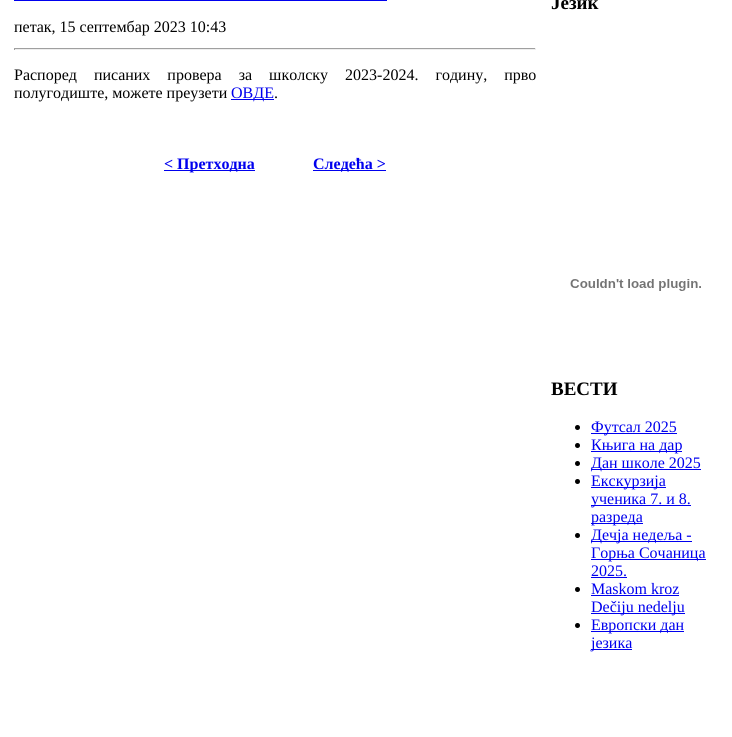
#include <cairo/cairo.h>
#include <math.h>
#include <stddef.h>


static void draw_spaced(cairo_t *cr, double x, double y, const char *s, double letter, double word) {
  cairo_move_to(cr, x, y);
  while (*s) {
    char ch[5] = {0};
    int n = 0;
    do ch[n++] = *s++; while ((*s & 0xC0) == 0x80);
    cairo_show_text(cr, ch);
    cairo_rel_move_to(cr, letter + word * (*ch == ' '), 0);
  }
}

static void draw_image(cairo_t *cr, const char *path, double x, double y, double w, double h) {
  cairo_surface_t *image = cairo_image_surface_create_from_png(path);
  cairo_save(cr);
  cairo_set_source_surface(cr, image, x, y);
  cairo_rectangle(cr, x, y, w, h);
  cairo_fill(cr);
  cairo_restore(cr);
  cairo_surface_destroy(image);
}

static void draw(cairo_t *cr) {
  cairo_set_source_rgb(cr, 1, 1, 1);
  cairo_paint(cr);
  cairo_set_source_rgb(cr, 0, 0, 238 / 255.0);
  cairo_rectangle(cr, 14, 0, 373, 1);
  cairo_fill(cr);
  cairo_set_source_rgb(cr, 159 / 255.0, 159 / 255.0, 159 / 255.0);
  cairo_rectangle(cr, 14, 48, 522, 1);
  cairo_fill(cr);
  cairo_set_source_rgb(cr, 238 / 255.0, 238 / 255.0, 238 / 255.0);
  cairo_rectangle(cr, 535, 48, 1, 2);
  cairo_fill(cr);
  cairo_rectangle(cr, 14, 49, 522, 1);
  cairo_fill(cr);
  cairo_set_source_rgb(cr, 159 / 255.0, 159 / 255.0, 159 / 255.0);
  cairo_rectangle(cr, 14, 48, 1, 2);
  cairo_fill(cr);
  cairo_set_source_rgb(cr, 0, 0, 238 / 255.0);
  cairo_rectangle(cr, 231, 99, 43, 1);
  cairo_fill(cr);
  cairo_rectangle(cr, 164, 170, 91, 1);
  cairo_fill(cr);
  cairo_rectangle(cr, 313, 170, 73, 1);
  cairo_fill(cr);
  draw_image(cr, "images/1.png", 570, 279, 131, 12);
  cairo_set_source_rgb(cr, 0, 0, 0);
  cairo_arc(cr, 577.5, 427.5, 2.5, 0, 2 * M_PI);
  cairo_fill(cr);
  cairo_set_source_rgb(cr, 0, 0, 238 / 255.0);
  cairo_rectangle(cr, 591, 433, 86, 1);
  cairo_fill(cr);
  cairo_set_source_rgb(cr, 0, 0, 0);
  cairo_arc(cr, 577.5, 445.5, 2.5, 0, 2 * M_PI);
  cairo_fill(cr);
  cairo_set_source_rgb(cr, 0, 0, 238 / 255.0);
  cairo_rectangle(cr, 591, 451, 91, 1);
  cairo_fill(cr);
  cairo_set_source_rgb(cr, 0, 0, 0);
  cairo_arc(cr, 577.5, 463.5, 2.5, 0, 2 * M_PI);
  cairo_fill(cr);
  cairo_set_source_rgb(cr, 0, 0, 238 / 255.0);
  cairo_rectangle(cr, 591, 469, 110, 1);
  cairo_fill(cr);
  cairo_set_source_rgb(cr, 0, 0, 0);
  cairo_arc(cr, 577.5, 481.5, 2.5, 0, 2 * M_PI);
  cairo_fill(cr);
  cairo_set_source_rgb(cr, 0, 0, 238 / 255.0);
  cairo_rectangle(cr, 591, 487, 75, 1);
  cairo_fill(cr);
  cairo_rectangle(cr, 591, 505, 100, 1);
  cairo_fill(cr);
  cairo_rectangle(cr, 591, 523, 52, 1);
  cairo_fill(cr);
  cairo_set_source_rgb(cr, 0, 0, 0);
  cairo_arc(cr, 577.5, 535.5, 2.5, 0, 2 * M_PI);
  cairo_fill(cr);
  cairo_set_source_rgb(cr, 0, 0, 238 / 255.0);
  cairo_rectangle(cr, 591, 541, 101, 1);
  cairo_fill(cr);
  cairo_rectangle(cr, 591, 559, 115, 1);
  cairo_fill(cr);
  cairo_rectangle(cr, 591, 577, 36, 1);
  cairo_fill(cr);
  cairo_set_source_rgb(cr, 0, 0, 0);
  cairo_arc(cr, 577.5, 589.5, 2.5, 0, 2 * M_PI);
  cairo_fill(cr);
  cairo_set_source_rgb(cr, 0, 0, 238 / 255.0);
  cairo_rectangle(cr, 591, 595, 88, 1);
  cairo_fill(cr);
  cairo_rectangle(cr, 591, 613, 94, 1);
  cairo_fill(cr);
  cairo_set_source_rgb(cr, 0, 0, 0);
  cairo_arc(cr, 577.5, 625.5, 2.5, 0, 2 * M_PI);
  cairo_fill(cr);
  cairo_set_source_rgb(cr, 0, 0, 238 / 255.0);
  cairo_rectangle(cr, 591, 631, 93, 1);
  cairo_fill(cr);
  cairo_rectangle(cr, 591, 649, 41, 1);
  cairo_fill(cr);
  cairo_select_font_face(cr, "Liberation Serif", CAIRO_FONT_SLANT_NORMAL, CAIRO_FONT_WEIGHT_NORMAL);
  cairo_set_font_size(cr, 16);
  cairo_set_source_rgb(cr, 0, 0, 0);
  cairo_move_to(cr, 14, 32);
  cairo_show_text(cr, "петак, 15 септембар 2023 10:43");
  draw_spaced(cr, 14, 80, "Распоред писаних провера за школску 2023-2024. годину, прво", 0, 13);
  cairo_move_to(cr, 14, 98);
  cairo_show_text(cr, "полугодиште, можете преузети");
  cairo_set_source_rgb(cr, 0, 0, 238 / 255.0);
  cairo_move_to(cr, 231, 98);
  cairo_show_text(cr, "ОВДЕ");
  cairo_set_source_rgb(cr, 0, 0, 0);
  cairo_move_to(cr, 274, 98);
  cairo_show_text(cr, ".");
  cairo_select_font_face(cr, "Liberation Serif", CAIRO_FONT_SLANT_NORMAL, CAIRO_FONT_WEIGHT_BOLD);
  cairo_set_source_rgb(cr, 0, 0, 238 / 255.0);
  cairo_move_to(cr, 164, 169);
  cairo_show_text(cr, "< Претходна");
  cairo_move_to(cr, 313, 169);
  cairo_show_text(cr, "Следећа >");
  cairo_set_font_size(cr, 19);
  cairo_set_source_rgb(cr, 0, 0, 0);
  cairo_move_to(cr, 551, 9);
  cairo_show_text(cr, "Језик");
  cairo_move_to(cr, 551, 395);
  cairo_show_text(cr, "ВЕСТИ");
  cairo_select_font_face(cr, "Liberation Serif", CAIRO_FONT_SLANT_NORMAL, CAIRO_FONT_WEIGHT_NORMAL);
  cairo_set_font_size(cr, 16);
  cairo_set_source_rgb(cr, 0, 0, 238 / 255.0);
  cairo_move_to(cr, 591, 432);
  cairo_show_text(cr, "Футсал 2025");
  cairo_move_to(cr, 591, 450);
  cairo_show_text(cr, "Књига на дар");
  cairo_move_to(cr, 591, 468);
  cairo_show_text(cr, "Дан школе 2025");
  cairo_move_to(cr, 591, 486);
  cairo_show_text(cr, "Екскурзија");
  cairo_move_to(cr, 591, 504);
  cairo_show_text(cr, "ученика 7. и 8.");
  cairo_move_to(cr, 591, 522);
  cairo_show_text(cr, "разреда");
  cairo_move_to(cr, 591, 540);
  cairo_show_text(cr, "Дечја недеља -");
  cairo_move_to(cr, 591, 558);
  cairo_show_text(cr, "Горња Сочаница");
  cairo_move_to(cr, 591, 576);
  cairo_show_text(cr, "2025.");
  cairo_move_to(cr, 591, 594);
  cairo_show_text(cr, "Maskom kroz");
  cairo_move_to(cr, 591, 612);
  cairo_show_text(cr, "Dečiju nedelju");
  cairo_move_to(cr, 591, 630);
  cairo_show_text(cr, "Европски дан");
  cairo_move_to(cr, 591, 648);
  cairo_show_text(cr, "језика");
}

int main(void) {
  cairo_surface_t *surface = cairo_image_surface_create(CAIRO_FORMAT_RGB24, 732, 737);
  cairo_t *cr = cairo_create(surface);
  cairo_font_options_t *options = cairo_font_options_create();
  cairo_font_options_set_hint_metrics(options, CAIRO_HINT_METRICS_OFF);
  cairo_font_options_set_hint_style(options, CAIRO_HINT_STYLE_NONE);
  cairo_set_font_options(cr, options);
  cairo_set_miter_limit(cr, 4);
  draw(cr);
  cairo_surface_write_to_png(surface, "out.png");
  cairo_font_options_destroy(options);
  cairo_destroy(cr);
  cairo_surface_destroy(surface);
  return 0;
}
